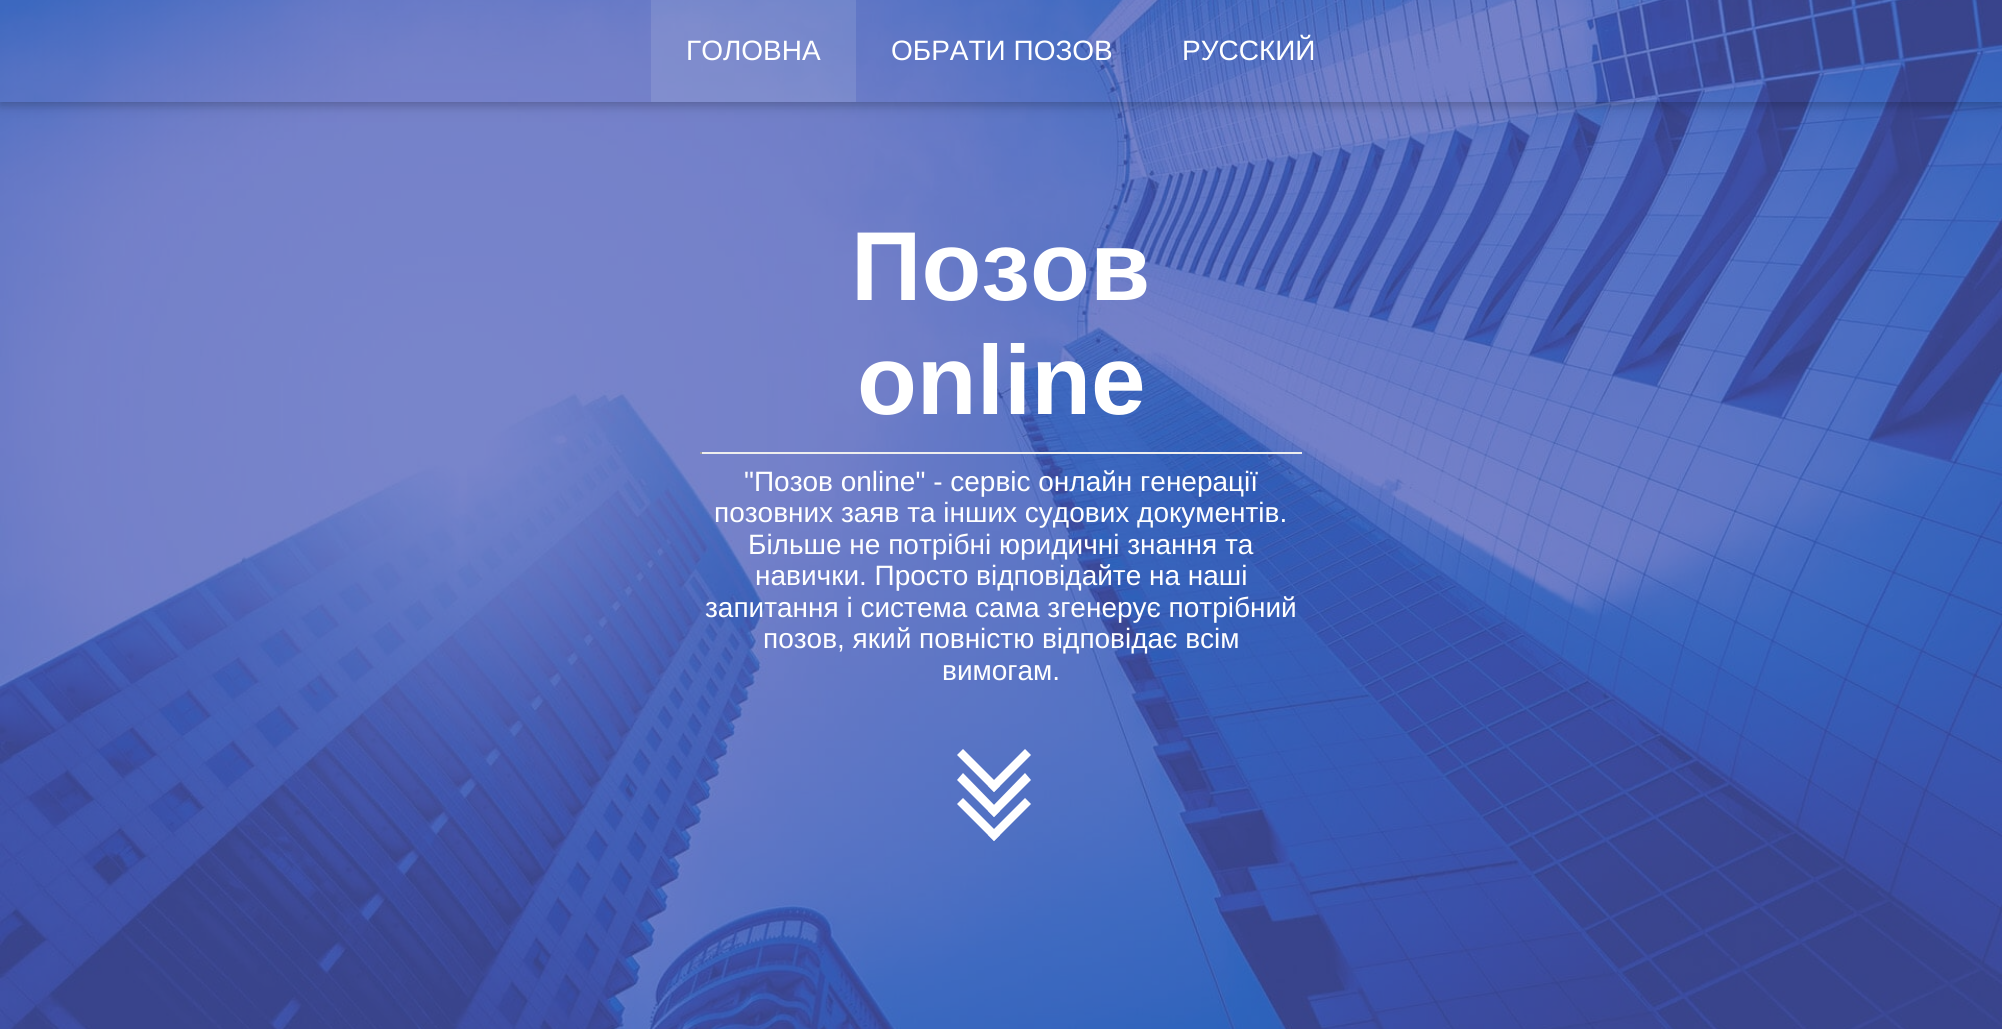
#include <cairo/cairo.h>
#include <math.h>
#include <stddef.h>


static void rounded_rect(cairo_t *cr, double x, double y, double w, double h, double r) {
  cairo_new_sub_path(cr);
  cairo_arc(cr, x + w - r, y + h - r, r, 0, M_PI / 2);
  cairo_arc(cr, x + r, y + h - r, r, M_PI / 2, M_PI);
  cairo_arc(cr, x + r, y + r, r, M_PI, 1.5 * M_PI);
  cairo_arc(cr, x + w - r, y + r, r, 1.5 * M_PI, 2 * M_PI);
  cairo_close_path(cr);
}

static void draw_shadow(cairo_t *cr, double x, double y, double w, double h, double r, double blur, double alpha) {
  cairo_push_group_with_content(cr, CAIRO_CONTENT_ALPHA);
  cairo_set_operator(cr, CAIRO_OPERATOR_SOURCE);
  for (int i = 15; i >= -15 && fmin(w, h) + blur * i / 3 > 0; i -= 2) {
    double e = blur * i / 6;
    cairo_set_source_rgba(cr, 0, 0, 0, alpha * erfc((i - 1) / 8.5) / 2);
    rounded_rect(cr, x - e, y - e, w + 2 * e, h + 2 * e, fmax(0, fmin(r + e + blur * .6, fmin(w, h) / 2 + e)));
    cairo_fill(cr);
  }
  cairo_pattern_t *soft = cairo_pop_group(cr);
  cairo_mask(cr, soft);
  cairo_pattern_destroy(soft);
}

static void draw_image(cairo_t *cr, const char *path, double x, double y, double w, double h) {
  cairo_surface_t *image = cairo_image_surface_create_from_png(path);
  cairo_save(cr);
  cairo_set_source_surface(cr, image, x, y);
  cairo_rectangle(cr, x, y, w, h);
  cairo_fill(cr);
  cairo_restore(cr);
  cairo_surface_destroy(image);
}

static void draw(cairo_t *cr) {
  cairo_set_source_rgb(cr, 1, 1, 1);
  cairo_paint(cr);
  draw_image(cr, "images/1.png", 0, 0, 2002, 1029);
  cairo_save(cr);
  cairo_set_fill_rule(cr, CAIRO_FILL_RULE_EVEN_ODD);
  cairo_new_path(cr);
  cairo_move_to(cr, 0, 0);
  cairo_line_to(cr, 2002, 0);
  cairo_line_to(cr, 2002, 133);
  cairo_line_to(cr, 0, 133);
  cairo_close_path(cr);
  cairo_move_to(cr, 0, 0);
  cairo_line_to(cr, 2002, 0);
  cairo_line_to(cr, 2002, 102);
  cairo_line_to(cr, 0, 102);
  cairo_close_path(cr);
  cairo_clip(cr);
  cairo_set_source_rgb(cr, 0, 0, 0);
  draw_shadow(cr, 0, 4, 2002, 101, 0, 9, 0.12);
  cairo_restore(cr);
  cairo_save(cr);
  cairo_set_fill_rule(cr, CAIRO_FILL_RULE_EVEN_ODD);
  cairo_new_path(cr);
  cairo_move_to(cr, 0, 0);
  cairo_line_to(cr, 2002, 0);
  cairo_line_to(cr, 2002, 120);
  cairo_line_to(cr, 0, 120);
  cairo_close_path(cr);
  cairo_move_to(cr, 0, 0);
  cairo_line_to(cr, 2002, 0);
  cairo_line_to(cr, 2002, 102);
  cairo_line_to(cr, 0, 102);
  cairo_close_path(cr);
  cairo_clip(cr);
  cairo_set_source_rgb(cr, 0, 0, 0);
  draw_shadow(cr, 0, 4, 2002, 101, 0, 4.5, 0.16);
  cairo_restore(cr);
  cairo_set_source_rgba(cr, 227 / 255.0, 231 / 255.0, 239 / 255.0, 0.13);
  cairo_rectangle(cr, 651, 0, 205, 102);
  cairo_fill(cr);
  cairo_set_source_rgb(cr, 238 / 255.0, 238 / 255.0, 238 / 255.0);
  cairo_rectangle(cr, 700, 452, 602, 2);
  cairo_fill(cr);
  cairo_set_source_rgb(cr, 159 / 255.0, 159 / 255.0, 159 / 255.0);
  cairo_rectangle(cr, 700, 452, 2, 2);
  cairo_fill(cr);
  cairo_set_source_rgb(cr, 1, 1, 1);
  cairo_new_path(cr);
  cairo_move_to(cr, 1025, 749);
  cairo_line_to(cr, 1031, 755);
  cairo_line_to(cr, 994, 792);
  cairo_line_to(cr, 988, 786);
  cairo_close_path(cr);
  cairo_fill(cr);
  cairo_new_path(cr);
  cairo_move_to(cr, 963, 749);
  cairo_line_to(cr, 1000, 786);
  cairo_line_to(cr, 994, 792);
  cairo_line_to(cr, 957, 755);
  cairo_close_path(cr);
  cairo_fill(cr);
  cairo_new_path(cr);
  cairo_move_to(cr, 1025, 773);
  cairo_line_to(cr, 1031, 780);
  cairo_line_to(cr, 994, 817);
  cairo_line_to(cr, 988, 811);
  cairo_close_path(cr);
  cairo_fill(cr);
  cairo_new_path(cr);
  cairo_move_to(cr, 963, 773);
  cairo_line_to(cr, 1000, 811);
  cairo_line_to(cr, 994, 817);
  cairo_line_to(cr, 957, 780);
  cairo_close_path(cr);
  cairo_fill(cr);
  cairo_new_path(cr);
  cairo_move_to(cr, 1025, 798);
  cairo_line_to(cr, 1031, 804);
  cairo_line_to(cr, 994, 841);
  cairo_line_to(cr, 988, 835);
  cairo_close_path(cr);
  cairo_fill(cr);
  cairo_new_path(cr);
  cairo_move_to(cr, 963, 798);
  cairo_line_to(cr, 1000, 835);
  cairo_line_to(cr, 994, 841);
  cairo_line_to(cr, 957, 804);
  cairo_close_path(cr);
  cairo_fill(cr);
  cairo_select_font_face(cr, "Liberation Sans", CAIRO_FONT_SLANT_NORMAL, CAIRO_FONT_WEIGHT_NORMAL);
  cairo_set_font_size(cr, 28);
  cairo_move_to(cr, 686, 60);
  cairo_show_text(cr, "ГОЛОВНА");
  cairo_move_to(cr, 891, 60);
  cairo_show_text(cr, "ОБРАТИ ПОЗОВ");
  cairo_move_to(cr, 1182, 60);
  cairo_show_text(cr, "РУССКИЙ");
  cairo_select_font_face(cr, "Liberation Sans", CAIRO_FONT_SLANT_NORMAL, CAIRO_FONT_WEIGHT_BOLD);
  cairo_set_font_size(cr, 98);
  cairo_move_to(cr, 851, 300);
  cairo_show_text(cr, "Позов");
  cairo_move_to(cr, 857, 414);
  cairo_show_text(cr, "online");
  cairo_select_font_face(cr, "Liberation Sans", CAIRO_FONT_SLANT_NORMAL, CAIRO_FONT_WEIGHT_NORMAL);
  cairo_set_font_size(cr, 28);
  cairo_move_to(cr, 744, 491);
  cairo_show_text(cr, "\"Позов online\" - сервіс онлайн генерації");
  cairo_move_to(cr, 714, 522);
  cairo_show_text(cr, "позовних заяв та інших судових документів.");
  cairo_move_to(cr, 748, 554);
  cairo_show_text(cr, "Більше не потрібні юридичні знання та");
  cairo_move_to(cr, 755, 585);
  cairo_show_text(cr, "навички. Просто відповідайте на наші");
  cairo_move_to(cr, 705, 617);
  cairo_show_text(cr, "запитання і система сама згенерує потрібний");
  cairo_move_to(cr, 763, 648);
  cairo_show_text(cr, "позов, який повністю відповідає всім");
  cairo_move_to(cr, 942, 680);
  cairo_show_text(cr, "вимогам.");
}

int main(void) {
  cairo_surface_t *surface = cairo_image_surface_create(CAIRO_FORMAT_RGB24, 2002, 1029);
  cairo_t *cr = cairo_create(surface);
  cairo_font_options_t *options = cairo_font_options_create();
  cairo_font_options_set_hint_metrics(options, CAIRO_HINT_METRICS_OFF);
  cairo_font_options_set_hint_style(options, CAIRO_HINT_STYLE_NONE);
  cairo_set_font_options(cr, options);
  cairo_set_miter_limit(cr, 4);
  draw(cr);
  cairo_surface_write_to_png(surface, "out.png");
  cairo_font_options_destroy(options);
  cairo_destroy(cr);
  cairo_surface_destroy(surface);
  return 0;
}
